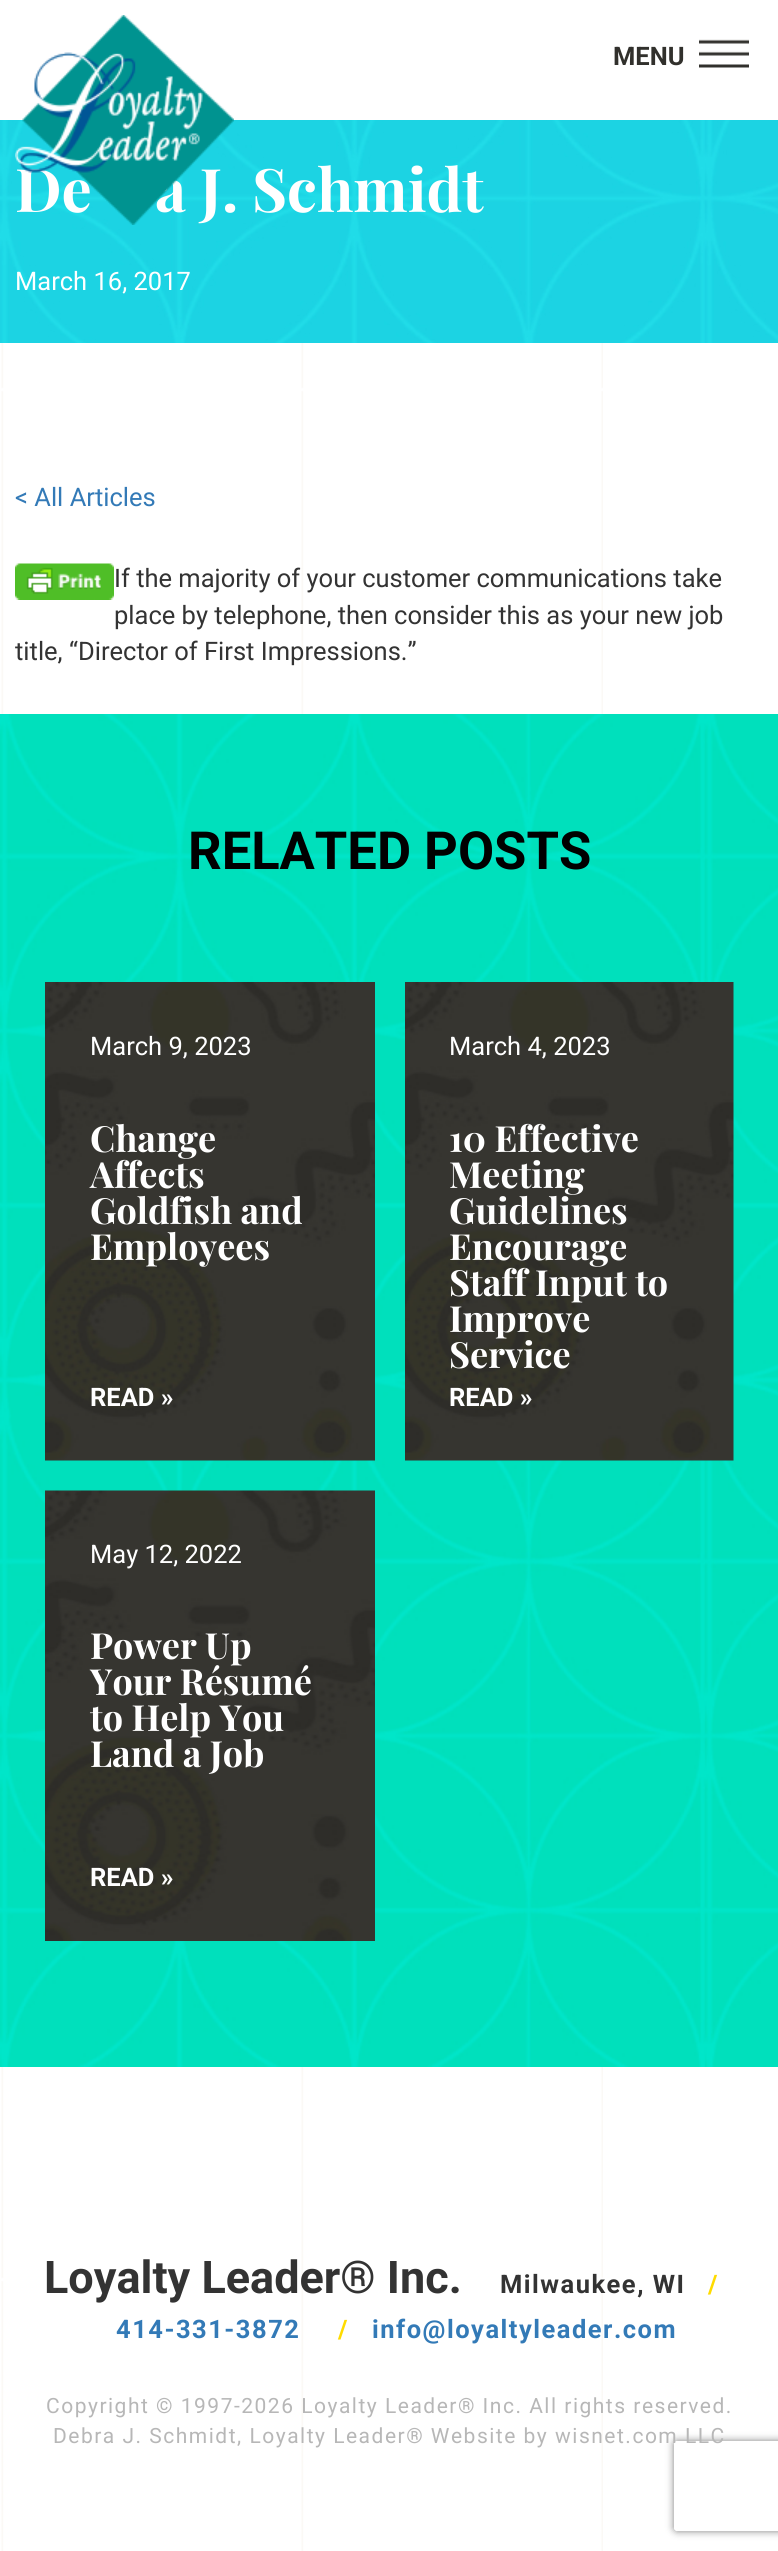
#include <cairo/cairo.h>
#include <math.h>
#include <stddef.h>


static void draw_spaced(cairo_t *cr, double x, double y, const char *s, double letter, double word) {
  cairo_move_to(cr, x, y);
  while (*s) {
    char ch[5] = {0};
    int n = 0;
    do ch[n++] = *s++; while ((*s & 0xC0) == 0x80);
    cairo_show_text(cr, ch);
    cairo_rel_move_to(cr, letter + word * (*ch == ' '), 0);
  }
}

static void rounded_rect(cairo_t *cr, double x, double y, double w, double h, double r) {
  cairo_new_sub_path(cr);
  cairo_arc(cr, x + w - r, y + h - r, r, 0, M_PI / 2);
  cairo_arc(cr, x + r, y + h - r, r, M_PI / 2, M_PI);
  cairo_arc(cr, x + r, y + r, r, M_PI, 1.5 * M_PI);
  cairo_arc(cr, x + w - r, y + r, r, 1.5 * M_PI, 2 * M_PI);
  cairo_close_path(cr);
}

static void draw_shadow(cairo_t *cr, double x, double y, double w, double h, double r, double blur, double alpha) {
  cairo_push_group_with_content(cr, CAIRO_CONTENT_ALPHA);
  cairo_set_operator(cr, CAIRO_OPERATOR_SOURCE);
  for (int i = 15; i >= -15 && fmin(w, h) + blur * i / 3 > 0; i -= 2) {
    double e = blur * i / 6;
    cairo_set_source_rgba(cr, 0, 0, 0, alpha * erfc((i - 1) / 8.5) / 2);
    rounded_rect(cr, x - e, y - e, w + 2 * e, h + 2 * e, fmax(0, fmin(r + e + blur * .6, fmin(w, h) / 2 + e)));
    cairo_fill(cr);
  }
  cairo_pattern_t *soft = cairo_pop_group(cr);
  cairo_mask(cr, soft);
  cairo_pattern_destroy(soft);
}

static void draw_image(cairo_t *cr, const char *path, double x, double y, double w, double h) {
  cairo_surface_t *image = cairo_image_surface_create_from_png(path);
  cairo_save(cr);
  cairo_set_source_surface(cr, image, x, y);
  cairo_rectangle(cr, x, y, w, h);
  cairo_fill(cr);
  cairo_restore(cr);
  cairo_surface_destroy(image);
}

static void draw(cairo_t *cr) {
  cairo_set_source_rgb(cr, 1, 1, 1);
  cairo_paint(cr);
  draw_image(cr, "images/1.png", 1, 343, 602, 2208);
  draw_image(cr, "images/3.png", 699, 39, 50, 29);
  draw_image(cr, "images/4.png", 0, 120, 778, 223);
  draw_image(cr, "images/5.png", 15, 563, 99, 37);
  draw_image(cr, "images/6.png", 0, 714, 778, 1353);
  draw_image(cr, "images/7.png", 45, 982, 330, 479);
  draw_image(cr, "images/8.png", 405, 982, 329, 479);
  draw_image(cr, "images/9.png", 45, 1490, 330, 451);
  cairo_save(cr);
  cairo_set_fill_rule(cr, CAIRO_FILL_RULE_EVEN_ODD);
  cairo_new_path(cr);
  cairo_move_to(cr, 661, 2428);
  cairo_line_to(cr, 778, 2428);
  cairo_line_to(cr, 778, 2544);
  cairo_line_to(cr, 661, 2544);
  cairo_close_path(cr);
  cairo_move_to(cr, 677, 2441);
  cairo_line_to(cr, 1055, 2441);
  cairo_curve_to(cr, 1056.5, 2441, 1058, 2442.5, 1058, 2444);
  cairo_line_to(cr, 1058, 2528);
  cairo_curve_to(cr, 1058, 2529.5, 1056.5, 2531, 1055, 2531);
  cairo_line_to(cr, 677, 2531);
  cairo_curve_to(cr, 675.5, 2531, 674, 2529.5, 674, 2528);
  cairo_line_to(cr, 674, 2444);
  cairo_curve_to(cr, 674, 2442.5, 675.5, 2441, 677, 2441);
  cairo_close_path(cr);
  cairo_clip(cr);
  cairo_set_source_rgb(cr, 128 / 255.0, 128 / 255.0, 128 / 255.0);
  draw_shadow(cr, 674, 2441, 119, 90, 3, 4, 1);
  cairo_restore(cr);
  cairo_select_font_face(cr, "Roboto", CAIRO_FONT_SLANT_NORMAL, CAIRO_FONT_WEIGHT_BOLD);
  cairo_set_font_size(cr, 25.5);
  cairo_set_source_rgb(cr, 49 / 255.0, 48 / 255.0, 44 / 255.0);
  cairo_move_to(cr, 613, 65);
  cairo_show_text(cr, "MENU");
  cairo_select_font_face(cr, "Playfair Display", CAIRO_FONT_SLANT_NORMAL, CAIRO_FONT_WEIGHT_BOLD);
  cairo_set_font_size(cr, 60);
  cairo_set_source_rgb(cr, 1, 1, 1);
  cairo_move_to(cr, 15, 212);
  cairo_show_text(cr, "De");
  cairo_move_to(cr, 155, 212);
  cairo_show_text(cr, "a J. Schmidt");
  draw_image(cr, "images/2.png", 15, 15, 219, 210);
  cairo_select_font_face(cr, "Roboto", CAIRO_FONT_SLANT_NORMAL, CAIRO_FONT_WEIGHT_NORMAL);
  cairo_set_font_size(cr, 25.5);
  cairo_move_to(cr, 15, 290);
  cairo_show_text(cr, "March 16, 2017");
  cairo_set_source_rgb(cr, 51 / 255.0, 122 / 255.0, 183 / 255.0);
  cairo_move_to(cr, 15, 506);
  cairo_show_text(cr, "< All Articles");
  cairo_set_source_rgb(cr, 51 / 255.0, 51 / 255.0, 51 / 255.0);
  cairo_move_to(cr, 114, 587);
  cairo_show_text(cr, "If the majority of your customer communications take");
  cairo_move_to(cr, 114, 624);
  cairo_show_text(cr, "place by telephone, then consider this as your new job");
  cairo_move_to(cr, 15, 660);
  cairo_show_text(cr, "title, “Director of First Impressions.”");
  cairo_select_font_face(cr, "Roboto", CAIRO_FONT_SLANT_NORMAL, CAIRO_FONT_WEIGHT_BOLD);
  cairo_set_font_size(cr, 52.5);
  cairo_set_source_rgb(cr, 0, 0, 0);
  cairo_move_to(cr, 188, 869);
  cairo_show_text(cr, "RELATED POSTS");
  cairo_select_font_face(cr, "Roboto", CAIRO_FONT_SLANT_NORMAL, CAIRO_FONT_WEIGHT_NORMAL);
  cairo_set_font_size(cr, 25.5);
  cairo_set_source_rgb(cr, 1, 1, 1);
  cairo_move_to(cr, 90, 1055);
  cairo_show_text(cr, "March 9, 2023");
  cairo_select_font_face(cr, "Playfair Display", CAIRO_FONT_SLANT_NORMAL, CAIRO_FONT_WEIGHT_BOLD);
  cairo_set_font_size(cr, 36);
  cairo_move_to(cr, 90, 1152);
  cairo_show_text(cr, "Change");
  cairo_move_to(cr, 90, 1188);
  cairo_show_text(cr, "Affects");
  cairo_move_to(cr, 90, 1224);
  cairo_show_text(cr, "Goldfish and");
  cairo_move_to(cr, 90, 1260);
  cairo_show_text(cr, "Employees");
  cairo_select_font_face(cr, "Roboto", CAIRO_FONT_SLANT_NORMAL, CAIRO_FONT_WEIGHT_BOLD);
  cairo_set_font_size(cr, 25.5);
  cairo_move_to(cr, 90, 1406);
  cairo_show_text(cr, "READ »");
  cairo_select_font_face(cr, "Roboto", CAIRO_FONT_SLANT_NORMAL, CAIRO_FONT_WEIGHT_NORMAL);
  cairo_move_to(cr, 449, 1055);
  cairo_show_text(cr, "March 4, 2023");
  cairo_select_font_face(cr, "Playfair Display", CAIRO_FONT_SLANT_NORMAL, CAIRO_FONT_WEIGHT_BOLD);
  cairo_set_font_size(cr, 36);
  cairo_move_to(cr, 449, 1152);
  cairo_show_text(cr, "10 Effective");
  cairo_move_to(cr, 449, 1188);
  cairo_show_text(cr, "Meeting");
  cairo_move_to(cr, 449, 1224);
  cairo_show_text(cr, "Guidelines");
  cairo_move_to(cr, 449, 1260);
  cairo_show_text(cr, "Encourage");
  cairo_move_to(cr, 449, 1296);
  cairo_show_text(cr, "Staff Input to");
  cairo_move_to(cr, 449, 1332);
  cairo_show_text(cr, "Improve");
  cairo_move_to(cr, 449, 1368);
  cairo_show_text(cr, "Service");
  cairo_select_font_face(cr, "Roboto", CAIRO_FONT_SLANT_NORMAL, CAIRO_FONT_WEIGHT_BOLD);
  cairo_set_font_size(cr, 25.5);
  cairo_move_to(cr, 449, 1406);
  cairo_show_text(cr, "READ »");
  cairo_select_font_face(cr, "Roboto", CAIRO_FONT_SLANT_NORMAL, CAIRO_FONT_WEIGHT_NORMAL);
  cairo_move_to(cr, 90, 1563);
  cairo_show_text(cr, "May 12, 2022");
  cairo_select_font_face(cr, "Playfair Display", CAIRO_FONT_SLANT_NORMAL, CAIRO_FONT_WEIGHT_BOLD);
  cairo_set_font_size(cr, 36);
  cairo_move_to(cr, 90, 1659);
  cairo_show_text(cr, "Power Up");
  cairo_move_to(cr, 90, 1695);
  cairo_show_text(cr, "Your Résumé");
  cairo_move_to(cr, 90, 1731);
  cairo_show_text(cr, "to Help You");
  cairo_move_to(cr, 90, 1767);
  cairo_show_text(cr, "Land a Job");
  cairo_select_font_face(cr, "Roboto", CAIRO_FONT_SLANT_NORMAL, CAIRO_FONT_WEIGHT_BOLD);
  cairo_set_font_size(cr, 25.5);
  cairo_move_to(cr, 90, 1886);
  cairo_show_text(cr, "READ »");
  cairo_set_font_size(cr, 45);
  cairo_set_source_rgb(cr, 51 / 255.0, 51 / 255.0, 51 / 255.0);
  cairo_move_to(cr, 44, 2293);
  cairo_show_text(cr, "Loyalty Leader® Inc.");
  cairo_set_font_size(cr, 25.5);
  draw_spaced(cr, 500, 2293, "Milwaukee, WI", 1.5, 0);
  cairo_set_source_rgb(cr, 1, 219 / 255.0, 0);
  draw_spaced(cr, 708, 2293, "/", 1.5, 0);
  cairo_set_source_rgb(cr, 51 / 255.0, 122 / 255.0, 183 / 255.0);
  draw_spaced(cr, 116, 2338, "414-331-3872", 1.5, 0);
  cairo_set_source_rgb(cr, 1, 219 / 255.0, 0);
  draw_spaced(cr, 338, 2338, "/", 1.5, 0);
  cairo_set_source_rgb(cr, 51 / 255.0, 122 / 255.0, 183 / 255.0);
  draw_spaced(cr, 372, 2338, "info@loyaltyleader.com", 1.5, 0);
  cairo_select_font_face(cr, "Roboto", CAIRO_FONT_SLANT_NORMAL, CAIRO_FONT_WEIGHT_NORMAL);
  cairo_set_font_size(cr, 21);
  cairo_set_source_rgb(cr, 183 / 255.0, 183 / 255.0, 183 / 255.0);
  draw_spaced(cr, 46, 2413, "Copyright © 1997-2026 Loyalty Leader® Inc. All rights reserved.", 1.5, 0);
  draw_spaced(cr, 53, 2443, "Debra J. Schmidt, Loyalty Leader® Website by wisnet.com LLC", 1.5, 0);
}

int main(void) {
  cairo_surface_t *surface = cairo_image_surface_create(CAIRO_FORMAT_RGB24, 778, 2551);
  cairo_t *cr = cairo_create(surface);
  cairo_font_options_t *options = cairo_font_options_create();
  cairo_font_options_set_hint_metrics(options, CAIRO_HINT_METRICS_OFF);
  cairo_font_options_set_hint_style(options, CAIRO_HINT_STYLE_NONE);
  cairo_set_font_options(cr, options);
  cairo_set_miter_limit(cr, 4);
  draw(cr);
  cairo_surface_write_to_png(surface, "out.png");
  cairo_font_options_destroy(options);
  cairo_destroy(cr);
  cairo_surface_destroy(surface);
  return 0;
}
